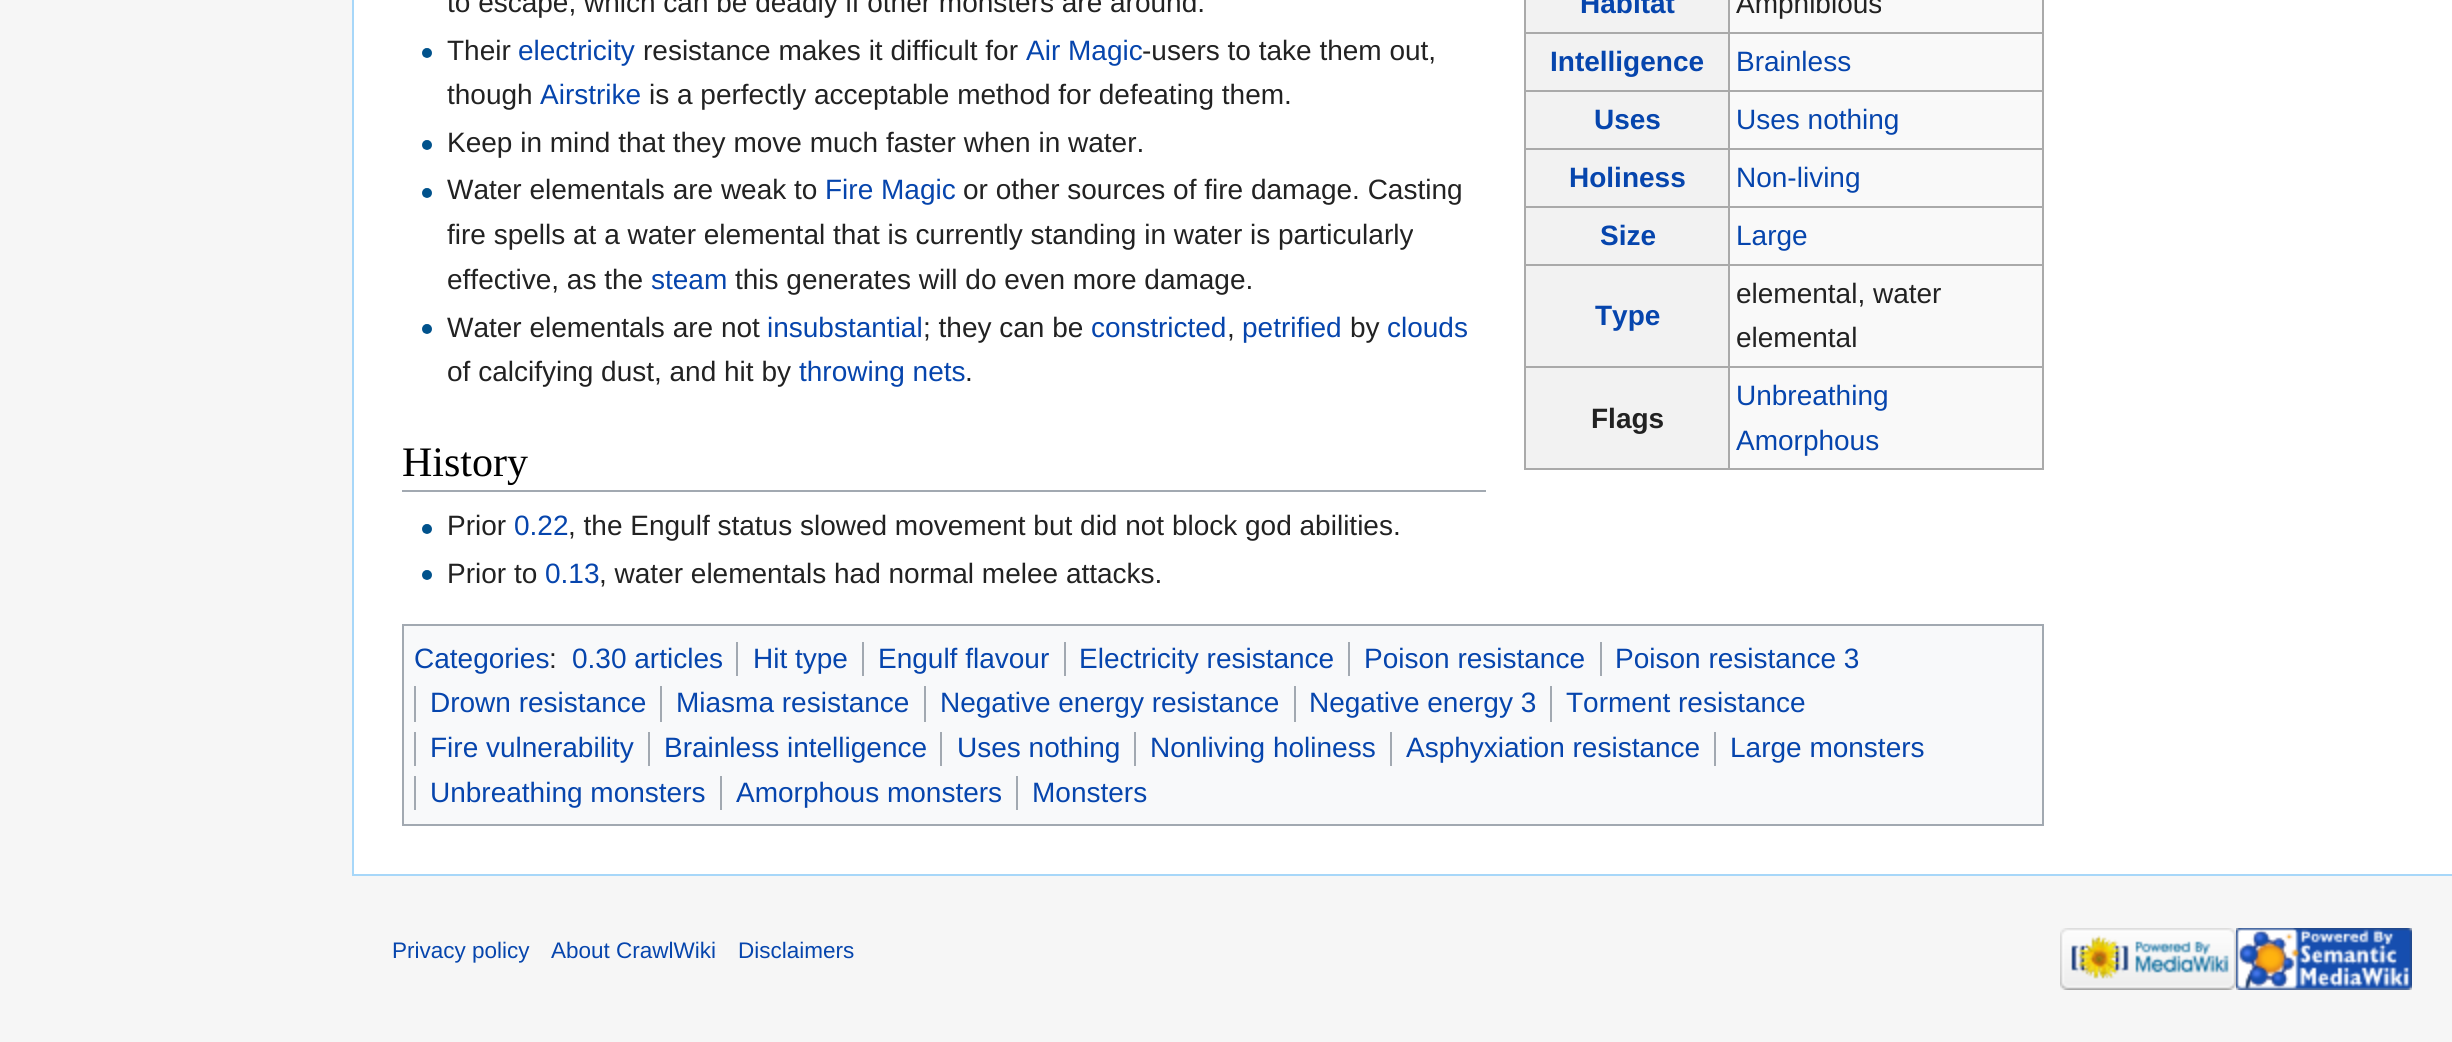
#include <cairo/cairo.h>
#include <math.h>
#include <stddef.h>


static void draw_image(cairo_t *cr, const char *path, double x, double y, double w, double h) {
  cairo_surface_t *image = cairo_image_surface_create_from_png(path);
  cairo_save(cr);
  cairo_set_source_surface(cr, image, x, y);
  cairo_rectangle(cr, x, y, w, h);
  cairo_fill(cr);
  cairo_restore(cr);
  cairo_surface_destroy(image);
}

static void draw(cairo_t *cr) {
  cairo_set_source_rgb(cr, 246 / 255.0, 246 / 255.0, 246 / 255.0);
  cairo_paint(cr);
  cairo_set_source_rgb(cr, 1, 1, 1);
  cairo_rectangle(cr, 354, 0, 2098, 874);
  cairo_fill(cr);
  cairo_set_source_rgb(cr, 167 / 255.0, 215 / 255.0, 249 / 255.0);
  cairo_rectangle(cr, 352, 874, 2100, 2);
  cairo_fill(cr);
  cairo_rectangle(cr, 352, 0, 2, 876);
  cairo_fill(cr);
  draw_image(cr, "images/1.png", 422, 48, 10, 10);
  draw_image(cr, "images/1.png", 422, 140, 10, 10);
  draw_image(cr, "images/1.png", 422, 188, 10, 10);
  draw_image(cr, "images/1.png", 422, 324, 10, 10);
  cairo_set_source_rgb(cr, 249 / 255.0, 249 / 255.0, 249 / 255.0);
  cairo_rectangle(cr, 1730, 0, 312, 468);
  cairo_fill(cr);
  cairo_set_source_rgb(cr, 242 / 255.0, 242 / 255.0, 242 / 255.0);
  cairo_rectangle(cr, 1526, 0, 202, 32);
  cairo_fill(cr);
  cairo_set_source_rgb(cr, 170 / 255.0, 170 / 255.0, 170 / 255.0);
  cairo_rectangle(cr, 1728, 32, 316, 2);
  cairo_fill(cr);
  cairo_rectangle(cr, 1728, 90, 316, 2);
  cairo_fill(cr);
  cairo_rectangle(cr, 1728, 148, 316, 2);
  cairo_fill(cr);
  cairo_rectangle(cr, 1728, 206, 316, 2);
  cairo_fill(cr);
  cairo_rectangle(cr, 1728, 264, 316, 2);
  cairo_fill(cr);
  cairo_rectangle(cr, 1728, 366, 316, 2);
  cairo_fill(cr);
  cairo_rectangle(cr, 2042, 366, 2, 104);
  cairo_fill(cr);
  cairo_rectangle(cr, 1728, 468, 316, 2);
  cairo_fill(cr);
  cairo_rectangle(cr, 1728, 366, 2, 104);
  cairo_fill(cr);
  cairo_rectangle(cr, 1524, 366, 206, 2);
  cairo_fill(cr);
  cairo_rectangle(cr, 1728, 264, 2, 104);
  cairo_fill(cr);
  cairo_rectangle(cr, 1524, 264, 206, 2);
  cairo_fill(cr);
  cairo_rectangle(cr, 1728, 206, 2, 60);
  cairo_fill(cr);
  cairo_rectangle(cr, 1524, 206, 206, 2);
  cairo_fill(cr);
  cairo_rectangle(cr, 1728, 148, 2, 60);
  cairo_fill(cr);
  cairo_rectangle(cr, 1524, 148, 206, 2);
  cairo_fill(cr);
  cairo_rectangle(cr, 1728, 90, 2, 60);
  cairo_fill(cr);
  cairo_rectangle(cr, 1524, 90, 206, 2);
  cairo_fill(cr);
  cairo_rectangle(cr, 1728, 32, 2, 60);
  cairo_fill(cr);
  cairo_rectangle(cr, 1524, 32, 206, 2);
  cairo_fill(cr);
  cairo_rectangle(cr, 1728, 0, 2, 34);
  cairo_fill(cr);
  cairo_set_source_rgb(cr, 242 / 255.0, 242 / 255.0, 242 / 255.0);
  cairo_rectangle(cr, 1526, 34, 202, 56);
  cairo_fill(cr);
  cairo_set_source_rgb(cr, 170 / 255.0, 170 / 255.0, 170 / 255.0);
  cairo_rectangle(cr, 1524, 468, 206, 2);
  cairo_fill(cr);
  cairo_rectangle(cr, 1524, 366, 2, 104);
  cairo_fill(cr);
  cairo_rectangle(cr, 1524, 264, 2, 104);
  cairo_fill(cr);
  cairo_rectangle(cr, 1524, 206, 2, 60);
  cairo_fill(cr);
  cairo_rectangle(cr, 1524, 148, 2, 60);
  cairo_fill(cr);
  cairo_rectangle(cr, 1524, 90, 2, 60);
  cairo_fill(cr);
  cairo_rectangle(cr, 1524, 0, 2, 92);
  cairo_fill(cr);
  cairo_rectangle(cr, 2042, 264, 2, 104);
  cairo_fill(cr);
  cairo_rectangle(cr, 2042, 206, 2, 60);
  cairo_fill(cr);
  cairo_rectangle(cr, 2042, 148, 2, 60);
  cairo_fill(cr);
  cairo_rectangle(cr, 2042, 90, 2, 60);
  cairo_fill(cr);
  cairo_rectangle(cr, 2042, 0, 2, 92);
  cairo_fill(cr);
  cairo_set_source_rgb(cr, 242 / 255.0, 242 / 255.0, 242 / 255.0);
  cairo_rectangle(cr, 1526, 92, 202, 56);
  cairo_fill(cr);
  cairo_rectangle(cr, 1526, 150, 202, 56);
  cairo_fill(cr);
  cairo_rectangle(cr, 1526, 208, 202, 56);
  cairo_fill(cr);
  cairo_rectangle(cr, 1526, 266, 202, 100);
  cairo_fill(cr);
  cairo_rectangle(cr, 1526, 368, 202, 100);
  cairo_fill(cr);
  cairo_set_source_rgb(cr, 162 / 255.0, 169 / 255.0, 177 / 255.0);
  cairo_rectangle(cr, 402, 490, 1084, 2);
  cairo_fill(cr);
  draw_image(cr, "images/1.png", 422, 524, 10, 10);
  draw_image(cr, "images/1.png", 422, 570, 10, 10);
  cairo_set_source_rgb(cr, 248 / 255.0, 249 / 255.0, 250 / 255.0);
  cairo_rectangle(cr, 403, 625, 1640, 200);
  cairo_fill_preserve(cr);
  cairo_set_source_rgb(cr, 162 / 255.0, 169 / 255.0, 177 / 255.0);
  cairo_stroke(cr);
  cairo_rectangle(cr, 736, 642, 2, 34);
  cairo_fill(cr);
  cairo_rectangle(cr, 862, 642, 2, 34);
  cairo_fill(cr);
  cairo_rectangle(cr, 1064, 642, 2, 34);
  cairo_fill(cr);
  cairo_rectangle(cr, 1348, 642, 2, 34);
  cairo_fill(cr);
  cairo_rectangle(cr, 1600, 642, 2, 34);
  cairo_fill(cr);
  cairo_rectangle(cr, 414, 686, 2, 36);
  cairo_fill(cr);
  cairo_rectangle(cr, 660, 686, 2, 36);
  cairo_fill(cr);
  cairo_rectangle(cr, 924, 686, 2, 36);
  cairo_fill(cr);
  cairo_rectangle(cr, 1294, 686, 2, 36);
  cairo_fill(cr);
  cairo_rectangle(cr, 1550, 686, 2, 36);
  cairo_fill(cr);
  cairo_rectangle(cr, 414, 732, 2, 34);
  cairo_fill(cr);
  cairo_rectangle(cr, 648, 732, 2, 34);
  cairo_fill(cr);
  cairo_rectangle(cr, 940, 732, 2, 34);
  cairo_fill(cr);
  cairo_rectangle(cr, 1134, 732, 2, 34);
  cairo_fill(cr);
  cairo_rectangle(cr, 1390, 732, 2, 34);
  cairo_fill(cr);
  cairo_rectangle(cr, 1714, 732, 2, 34);
  cairo_fill(cr);
  cairo_rectangle(cr, 414, 776, 2, 34);
  cairo_fill(cr);
  cairo_rectangle(cr, 720, 776, 2, 34);
  cairo_fill(cr);
  cairo_rectangle(cr, 1016, 776, 2, 34);
  cairo_fill(cr);
  draw_image(cr, "images/2.png", 2060, 928, 176, 62);
  draw_image(cr, "images/3.png", 2236, 928, 176, 62);
  cairo_select_font_face(cr, "Liberation Sans", CAIRO_FONT_SLANT_NORMAL, CAIRO_FONT_WEIGHT_NORMAL);
  cairo_set_font_size(cr, 28);
  cairo_set_source_rgb(cr, 34 / 255.0, 34 / 255.0, 34 / 255.0);
  cairo_move_to(cr, 447, 12);
  cairo_show_text(cr, "to escape, which can be deadly if other monsters are around.");
  cairo_move_to(cr, 447, 60);
  cairo_show_text(cr, "Their");
  cairo_set_source_rgb(cr, 6 / 255.0, 69 / 255.0, 173 / 255.0);
  cairo_move_to(cr, 518, 60);
  cairo_show_text(cr, "electricity");
  cairo_set_source_rgb(cr, 34 / 255.0, 34 / 255.0, 34 / 255.0);
  cairo_move_to(cr, 643, 60);
  cairo_show_text(cr, "resistance makes it difficult for");
  cairo_set_source_rgb(cr, 6 / 255.0, 69 / 255.0, 173 / 255.0);
  cairo_move_to(cr, 1026, 60);
  cairo_show_text(cr, "Air Magic");
  cairo_set_source_rgb(cr, 34 / 255.0, 34 / 255.0, 34 / 255.0);
  cairo_move_to(cr, 1142, 60);
  cairo_show_text(cr, "-users to take them out,");
  cairo_move_to(cr, 447, 104);
  cairo_show_text(cr, "though");
  cairo_set_source_rgb(cr, 6 / 255.0, 69 / 255.0, 173 / 255.0);
  cairo_move_to(cr, 540, 104);
  cairo_show_text(cr, "Airstrike");
  cairo_set_source_rgb(cr, 34 / 255.0, 34 / 255.0, 34 / 255.0);
  cairo_move_to(cr, 649, 104);
  cairo_show_text(cr, "is a perfectly acceptable method for defeating them.");
  cairo_move_to(cr, 447, 152);
  cairo_show_text(cr, "Keep in mind that they move much faster when in water.");
  cairo_move_to(cr, 447, 199);
  cairo_show_text(cr, "Water elementals are weak to");
  cairo_set_source_rgb(cr, 6 / 255.0, 69 / 255.0, 173 / 255.0);
  cairo_move_to(cr, 825, 199);
  cairo_show_text(cr, "Fire Magic");
  cairo_set_source_rgb(cr, 34 / 255.0, 34 / 255.0, 34 / 255.0);
  cairo_move_to(cr, 963, 199);
  cairo_show_text(cr, "or other sources of fire damage. Casting");
  cairo_move_to(cr, 447, 244);
  cairo_show_text(cr, "fire spells at a water elemental that is currently standing in water is particularly");
  cairo_move_to(cr, 447, 289);
  cairo_show_text(cr, "effective, as the");
  cairo_set_source_rgb(cr, 6 / 255.0, 69 / 255.0, 173 / 255.0);
  cairo_move_to(cr, 651, 289);
  cairo_show_text(cr, "steam");
  cairo_set_source_rgb(cr, 34 / 255.0, 34 / 255.0, 34 / 255.0);
  cairo_move_to(cr, 735, 289);
  cairo_show_text(cr, "this generates will do even more damage.");
  cairo_move_to(cr, 447, 337);
  cairo_show_text(cr, "Water elementals are not");
  cairo_set_source_rgb(cr, 6 / 255.0, 69 / 255.0, 173 / 255.0);
  cairo_move_to(cr, 767, 337);
  cairo_show_text(cr, "insubstantial");
  cairo_set_source_rgb(cr, 34 / 255.0, 34 / 255.0, 34 / 255.0);
  cairo_move_to(cr, 923, 337);
  cairo_show_text(cr, "; they can be");
  cairo_set_source_rgb(cr, 6 / 255.0, 69 / 255.0, 173 / 255.0);
  cairo_move_to(cr, 1091, 337);
  cairo_show_text(cr, "constricted");
  cairo_set_source_rgb(cr, 34 / 255.0, 34 / 255.0, 34 / 255.0);
  cairo_move_to(cr, 1227, 337);
  cairo_show_text(cr, ",");
  cairo_set_source_rgb(cr, 6 / 255.0, 69 / 255.0, 173 / 255.0);
  cairo_move_to(cr, 1242, 337);
  cairo_show_text(cr, "petrified");
  cairo_set_source_rgb(cr, 34 / 255.0, 34 / 255.0, 34 / 255.0);
  cairo_move_to(cr, 1350, 337);
  cairo_show_text(cr, "by");
  cairo_set_source_rgb(cr, 6 / 255.0, 69 / 255.0, 173 / 255.0);
  cairo_move_to(cr, 1387, 337);
  cairo_show_text(cr, "clouds");
  cairo_set_source_rgb(cr, 34 / 255.0, 34 / 255.0, 34 / 255.0);
  cairo_move_to(cr, 447, 381);
  cairo_show_text(cr, "of calcifying dust, and hit by");
  cairo_set_source_rgb(cr, 6 / 255.0, 69 / 255.0, 173 / 255.0);
  cairo_move_to(cr, 799, 381);
  cairo_show_text(cr, "throwing nets");
  cairo_set_source_rgb(cr, 34 / 255.0, 34 / 255.0, 34 / 255.0);
  cairo_move_to(cr, 965, 381);
  cairo_show_text(cr, ".");
  cairo_select_font_face(cr, "Liberation Sans", CAIRO_FONT_SLANT_NORMAL, CAIRO_FONT_WEIGHT_BOLD);
  cairo_set_source_rgb(cr, 6 / 255.0, 69 / 255.0, 173 / 255.0);
  cairo_move_to(cr, 1580, 13);
  cairo_show_text(cr, "Habitat");
  cairo_select_font_face(cr, "Liberation Sans", CAIRO_FONT_SLANT_NORMAL, CAIRO_FONT_WEIGHT_NORMAL);
  cairo_set_source_rgb(cr, 34 / 255.0, 34 / 255.0, 34 / 255.0);
  cairo_move_to(cr, 1736, 13);
  cairo_show_text(cr, "Amphibious");
  cairo_select_font_face(cr, "Liberation Sans", CAIRO_FONT_SLANT_NORMAL, CAIRO_FONT_WEIGHT_BOLD);
  cairo_set_source_rgb(cr, 6 / 255.0, 69 / 255.0, 173 / 255.0);
  cairo_move_to(cr, 1550, 71);
  cairo_show_text(cr, "Intelligence");
  cairo_select_font_face(cr, "Liberation Sans", CAIRO_FONT_SLANT_NORMAL, CAIRO_FONT_WEIGHT_NORMAL);
  cairo_move_to(cr, 1736, 71);
  cairo_show_text(cr, "Brainless");
  cairo_select_font_face(cr, "Liberation Sans", CAIRO_FONT_SLANT_NORMAL, CAIRO_FONT_WEIGHT_BOLD);
  cairo_move_to(cr, 1594, 129);
  cairo_show_text(cr, "Uses");
  cairo_select_font_face(cr, "Liberation Sans", CAIRO_FONT_SLANT_NORMAL, CAIRO_FONT_WEIGHT_NORMAL);
  cairo_move_to(cr, 1736, 129);
  cairo_show_text(cr, "Uses nothing");
  cairo_select_font_face(cr, "Liberation Sans", CAIRO_FONT_SLANT_NORMAL, CAIRO_FONT_WEIGHT_BOLD);
  cairo_move_to(cr, 1569, 187);
  cairo_show_text(cr, "Holiness");
  cairo_select_font_face(cr, "Liberation Sans", CAIRO_FONT_SLANT_NORMAL, CAIRO_FONT_WEIGHT_NORMAL);
  cairo_move_to(cr, 1736, 187);
  cairo_show_text(cr, "Non-living");
  cairo_select_font_face(cr, "Liberation Sans", CAIRO_FONT_SLANT_NORMAL, CAIRO_FONT_WEIGHT_BOLD);
  cairo_move_to(cr, 1600, 245);
  cairo_show_text(cr, "Size");
  cairo_select_font_face(cr, "Liberation Sans", CAIRO_FONT_SLANT_NORMAL, CAIRO_FONT_WEIGHT_NORMAL);
  cairo_move_to(cr, 1736, 245);
  cairo_show_text(cr, "Large");
  cairo_select_font_face(cr, "Liberation Sans", CAIRO_FONT_SLANT_NORMAL, CAIRO_FONT_WEIGHT_BOLD);
  cairo_move_to(cr, 1595, 325);
  cairo_show_text(cr, "Type");
  cairo_select_font_face(cr, "Liberation Sans", CAIRO_FONT_SLANT_NORMAL, CAIRO_FONT_WEIGHT_NORMAL);
  cairo_set_source_rgb(cr, 34 / 255.0, 34 / 255.0, 34 / 255.0);
  cairo_move_to(cr, 1736, 303);
  cairo_show_text(cr, "elemental, water");
  cairo_move_to(cr, 1736, 347);
  cairo_show_text(cr, "elemental");
  cairo_select_font_face(cr, "Liberation Sans", CAIRO_FONT_SLANT_NORMAL, CAIRO_FONT_WEIGHT_BOLD);
  cairo_move_to(cr, 1591, 428);
  cairo_show_text(cr, "Flags");
  cairo_select_font_face(cr, "Liberation Sans", CAIRO_FONT_SLANT_NORMAL, CAIRO_FONT_WEIGHT_NORMAL);
  cairo_set_source_rgb(cr, 6 / 255.0, 69 / 255.0, 173 / 255.0);
  cairo_move_to(cr, 1736, 405);
  cairo_show_text(cr, "Unbreathing");
  cairo_move_to(cr, 1736, 450);
  cairo_show_text(cr, "Amorphous");
  cairo_select_font_face(cr, "Liberation Serif", CAIRO_FONT_SLANT_NORMAL, CAIRO_FONT_WEIGHT_NORMAL);
  cairo_set_font_size(cr, 42);
  cairo_set_source_rgb(cr, 0, 0, 0);
  cairo_move_to(cr, 402, 476);
  cairo_show_text(cr, "History");
  cairo_select_font_face(cr, "Liberation Sans", CAIRO_FONT_SLANT_NORMAL, CAIRO_FONT_WEIGHT_NORMAL);
  cairo_set_font_size(cr, 28);
  cairo_set_source_rgb(cr, 34 / 255.0, 34 / 255.0, 34 / 255.0);
  cairo_move_to(cr, 447, 535);
  cairo_show_text(cr, "Prior");
  cairo_set_source_rgb(cr, 6 / 255.0, 69 / 255.0, 173 / 255.0);
  cairo_move_to(cr, 514, 535);
  cairo_show_text(cr, "0.22");
  cairo_set_source_rgb(cr, 34 / 255.0, 34 / 255.0, 34 / 255.0);
  cairo_move_to(cr, 568, 535);
  cairo_show_text(cr, ", the Engulf status slowed movement but did not block god abilities.");
  cairo_move_to(cr, 447, 583);
  cairo_show_text(cr, "Prior to");
  cairo_set_source_rgb(cr, 6 / 255.0, 69 / 255.0, 173 / 255.0);
  cairo_move_to(cr, 545, 583);
  cairo_show_text(cr, "0.13");
  cairo_set_source_rgb(cr, 34 / 255.0, 34 / 255.0, 34 / 255.0);
  cairo_move_to(cr, 599, 583);
  cairo_show_text(cr, ", water elementals had normal melee attacks.");
  cairo_set_source_rgb(cr, 6 / 255.0, 69 / 255.0, 173 / 255.0);
  cairo_move_to(cr, 414, 668);
  cairo_show_text(cr, "Categories");
  cairo_move_to(cr, 572, 668);
  cairo_show_text(cr, "0.30 articles");
  cairo_move_to(cr, 753, 668);
  cairo_show_text(cr, "Hit type");
  cairo_move_to(cr, 878, 668);
  cairo_show_text(cr, "Engulf flavour");
  cairo_move_to(cr, 1079, 668);
  cairo_show_text(cr, "Electricity resistance");
  cairo_move_to(cr, 1364, 668);
  cairo_show_text(cr, "Poison resistance");
  cairo_move_to(cr, 1615, 668);
  cairo_show_text(cr, "Poison resistance 3");
  cairo_move_to(cr, 430, 712);
  cairo_show_text(cr, "Drown resistance");
  cairo_move_to(cr, 676, 712);
  cairo_show_text(cr, "Miasma resistance");
  cairo_move_to(cr, 940, 712);
  cairo_show_text(cr, "Negative energy resistance");
  cairo_move_to(cr, 1309, 712);
  cairo_show_text(cr, "Negative energy 3");
  cairo_move_to(cr, 1566, 712);
  cairo_show_text(cr, "Torment resistance");
  cairo_move_to(cr, 430, 757);
  cairo_show_text(cr, "Fire vulnerability");
  cairo_move_to(cr, 664, 757);
  cairo_show_text(cr, "Brainless intelligence");
  cairo_move_to(cr, 957, 757);
  cairo_show_text(cr, "Uses nothing");
  cairo_move_to(cr, 1150, 757);
  cairo_show_text(cr, "Nonliving holiness");
  cairo_move_to(cr, 1406, 757);
  cairo_show_text(cr, "Asphyxiation resistance");
  cairo_move_to(cr, 1730, 757);
  cairo_show_text(cr, "Large monsters");
  cairo_move_to(cr, 430, 802);
  cairo_show_text(cr, "Unbreathing monsters");
  cairo_move_to(cr, 736, 802);
  cairo_show_text(cr, "Amorphous monsters");
  cairo_move_to(cr, 1032, 802);
  cairo_show_text(cr, "Monsters");
  cairo_set_source_rgb(cr, 34 / 255.0, 34 / 255.0, 34 / 255.0);
  cairo_move_to(cr, 549, 668);
  cairo_show_text(cr, ":");
  cairo_set_font_size(cr, 22.5);
  cairo_set_source_rgb(cr, 6 / 255.0, 69 / 255.0, 173 / 255.0);
  cairo_move_to(cr, 392, 958);
  cairo_show_text(cr, "Privacy policy");
  cairo_move_to(cr, 551, 958);
  cairo_show_text(cr, "About CrawlWiki");
  cairo_move_to(cr, 738, 958);
  cairo_show_text(cr, "Disclaimers");
}

int main(void) {
  cairo_surface_t *surface = cairo_image_surface_create(CAIRO_FORMAT_RGB24, 2452, 1042);
  cairo_t *cr = cairo_create(surface);
  cairo_font_options_t *options = cairo_font_options_create();
  cairo_font_options_set_hint_metrics(options, CAIRO_HINT_METRICS_OFF);
  cairo_font_options_set_hint_style(options, CAIRO_HINT_STYLE_NONE);
  cairo_set_font_options(cr, options);
  cairo_set_miter_limit(cr, 4);
  draw(cr);
  cairo_surface_write_to_png(surface, "out.png");
  cairo_font_options_destroy(options);
  cairo_destroy(cr);
  cairo_surface_destroy(surface);
  return 0;
}
